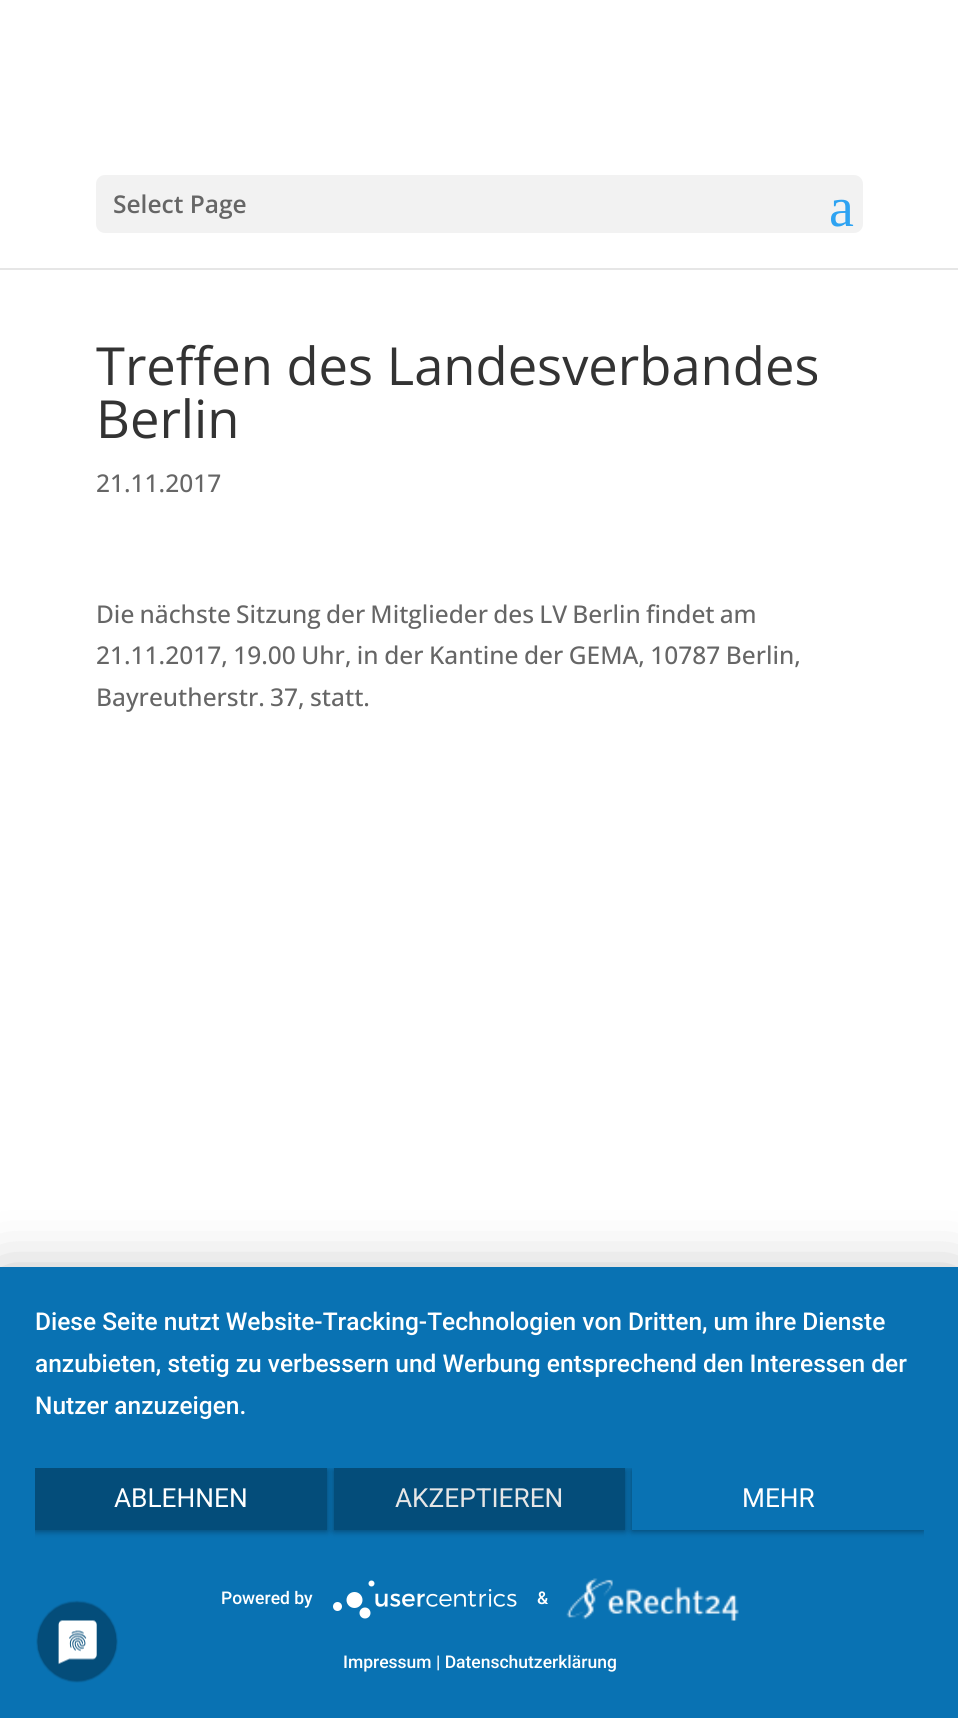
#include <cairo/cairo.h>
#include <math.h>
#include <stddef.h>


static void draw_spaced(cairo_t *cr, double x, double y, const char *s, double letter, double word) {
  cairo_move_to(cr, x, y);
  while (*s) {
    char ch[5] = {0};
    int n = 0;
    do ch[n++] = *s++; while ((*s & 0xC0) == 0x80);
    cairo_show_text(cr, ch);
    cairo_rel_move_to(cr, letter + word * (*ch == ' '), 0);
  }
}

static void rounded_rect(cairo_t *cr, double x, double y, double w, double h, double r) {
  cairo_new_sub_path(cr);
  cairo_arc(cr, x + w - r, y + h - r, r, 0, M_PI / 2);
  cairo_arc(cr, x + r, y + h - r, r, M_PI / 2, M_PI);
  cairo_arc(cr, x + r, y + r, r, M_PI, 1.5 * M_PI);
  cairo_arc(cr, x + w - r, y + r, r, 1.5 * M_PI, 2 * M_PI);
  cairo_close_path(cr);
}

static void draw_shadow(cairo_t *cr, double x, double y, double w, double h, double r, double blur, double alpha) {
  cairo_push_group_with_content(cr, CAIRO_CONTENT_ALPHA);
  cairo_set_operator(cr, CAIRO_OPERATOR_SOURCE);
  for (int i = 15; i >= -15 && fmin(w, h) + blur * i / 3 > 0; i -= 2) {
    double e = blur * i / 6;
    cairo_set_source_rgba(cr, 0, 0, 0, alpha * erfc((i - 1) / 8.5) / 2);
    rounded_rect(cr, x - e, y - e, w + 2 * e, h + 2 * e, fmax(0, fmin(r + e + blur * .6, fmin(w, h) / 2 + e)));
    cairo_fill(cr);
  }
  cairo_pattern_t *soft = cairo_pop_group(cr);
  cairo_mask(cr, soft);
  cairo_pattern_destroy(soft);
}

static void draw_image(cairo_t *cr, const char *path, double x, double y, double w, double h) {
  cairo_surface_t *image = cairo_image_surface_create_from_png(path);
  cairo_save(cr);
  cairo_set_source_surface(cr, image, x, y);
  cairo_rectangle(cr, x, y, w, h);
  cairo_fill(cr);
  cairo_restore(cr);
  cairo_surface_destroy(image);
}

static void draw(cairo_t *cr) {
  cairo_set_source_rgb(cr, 1, 1, 1);
  cairo_paint(cr);
  cairo_set_source_rgb(cr, 230 / 255.0, 230 / 255.0, 230 / 255.0);
  cairo_rectangle(cr, 0, 268, 958, 2);
  cairo_fill(cr);
  cairo_set_source_rgb(cr, 242 / 255.0, 242 / 255.0, 242 / 255.0);
  rounded_rect(cr, 96, 175, 767, 58, 9);
  cairo_fill(cr);
  cairo_set_source_rgb(cr, 0, 0, 0);
  draw_shadow(cr, 0, 1278, 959, 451, 0, 31.5, 0.3);
  cairo_set_source_rgb(cr, 9 / 255.0, 114 / 255.0, 179 / 255.0);
  cairo_rectangle(cr, 0, 1267, 958, 451);
  cairo_fill(cr);
  cairo_save(cr);
  cairo_rectangle(cr, 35, 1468, 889, 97);
  cairo_clip(cr);
  cairo_set_source_rgb(cr, 0, 0, 0);
  draw_shadow(cr, 35, 1470, 292, 61, 0, 3.5, 0.4);
  cairo_restore(cr);
  cairo_set_source_rgb(cr, 4 / 255.0, 77 / 255.0, 122 / 255.0);
  cairo_rectangle(cr, 35, 1468, 292, 62);
  cairo_fill(cr);
  cairo_save(cr);
  cairo_rectangle(cr, 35, 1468, 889, 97);
  cairo_clip(cr);
  cairo_set_source_rgb(cr, 0, 0, 0);
  draw_shadow(cr, 334, 1470, 291, 61, 0, 3.5, 0.4);
  cairo_restore(cr);
  cairo_rectangle(cr, 334, 1468, 291, 62);
  cairo_fill(cr);
  cairo_save(cr);
  cairo_rectangle(cr, 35, 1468, 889, 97);
  cairo_clip(cr);
  cairo_set_source_rgb(cr, 0, 0, 0);
  draw_shadow(cr, 632, 1470, 292, 61, 0, 3.5, 0.4);
  cairo_restore(cr);
  cairo_set_source_rgb(cr, 9 / 255.0, 114 / 255.0, 179 / 255.0);
  cairo_rectangle(cr, 632, 1468, 292, 62);
  cairo_fill(cr);
  draw_image(cr, "images/1.png", 333, 1580, 184, 39);
  draw_image(cr, "images/2.png", 566, 1578, 173, 43);
  draw_image(cr, "images/3.png", 36, 1600, 82, 83);
  cairo_select_font_face(cr, "Open Sans SemiBold", CAIRO_FONT_SLANT_NORMAL, CAIRO_FONT_WEIGHT_NORMAL);
  cairo_set_font_size(cr, 24.5);
  cairo_set_source_rgb(cr, 102 / 255.0, 102 / 255.0, 102 / 255.0);
  cairo_move_to(cr, 113, 213);
  cairo_show_text(cr, "Select Page");
  cairo_select_font_face(cr, "Liberation Serif", CAIRO_FONT_SLANT_NORMAL, CAIRO_FONT_WEIGHT_NORMAL);
  cairo_set_font_size(cr, 56);
  cairo_set_source_rgb(cr, 46 / 255.0, 163 / 255.0, 242 / 255.0);
  cairo_move_to(cr, 829, 226);
  cairo_show_text(cr, "a");
  cairo_select_font_face(cr, "Open Sans", CAIRO_FONT_SLANT_NORMAL, CAIRO_FONT_WEIGHT_NORMAL);
  cairo_set_font_size(cr, 52.5);
  cairo_set_source_rgb(cr, 51 / 255.0, 51 / 255.0, 51 / 255.0);
  cairo_move_to(cr, 96, 385);
  cairo_show_text(cr, "Treffen des Landesverbandes");
  cairo_move_to(cr, 96, 438);
  cairo_show_text(cr, "Berlin");
  cairo_select_font_face(cr, "Open Sans Medium", CAIRO_FONT_SLANT_NORMAL, CAIRO_FONT_WEIGHT_NORMAL);
  cairo_set_font_size(cr, 24.5);
  cairo_set_source_rgb(cr, 102 / 255.0, 102 / 255.0, 102 / 255.0);
  cairo_move_to(cr, 96, 492);
  cairo_show_text(cr, "21.11.2017");
  draw_spaced(cr, 96, 623, "Die nächste Sitzung der Mitglieder des LV Berlin findet am", 0, -1.25);
  draw_spaced(cr, 96, 664, "21.11.2017, 19.00 Uhr, in der Kantine der GEMA, 10787 Berlin,", 0, -0.9);
  draw_spaced(cr, 96, 706, "Bayreutherstr. 37, statt.", 0, -1);
  cairo_select_font_face(cr, "Roboto Medium", CAIRO_FONT_SLANT_NORMAL, CAIRO_FONT_WEIGHT_NORMAL);
  cairo_set_source_rgb(cr, 1, 1, 1);
  cairo_move_to(cr, 35, 1330);
  cairo_show_text(cr, "Diese Seite nutzt Website-Tracking-Technologien von Dritten, um ihre Dienste");
  cairo_move_to(cr, 35, 1372);
  cairo_show_text(cr, "anzubieten, stetig zu verbessern und Werbung entsprechend den Interessen der");
  cairo_move_to(cr, 35, 1414);
  cairo_show_text(cr, "Nutzer anzuzeigen.");
  cairo_select_font_face(cr, "Roboto", CAIRO_FONT_SLANT_NORMAL, CAIRO_FONT_WEIGHT_NORMAL);
  cairo_set_font_size(cr, 26.25);
  cairo_move_to(cr, 114, 1507);
  cairo_show_text(cr, "ABLEHNEN");
  cairo_set_source_rgb(cr, 230 / 255.0, 230 / 255.0, 230 / 255.0);
  cairo_move_to(cr, 395, 1507);
  cairo_show_text(cr, "AKZEPTIEREN");
  cairo_set_source_rgb(cr, 1, 1, 1);
  cairo_move_to(cr, 742, 1507);
  cairo_show_text(cr, "MEHR");
  cairo_select_font_face(cr, "Roboto Medium", CAIRO_FONT_SLANT_NORMAL, CAIRO_FONT_WEIGHT_NORMAL);
  cairo_set_font_size(cr, 17.5);
  cairo_move_to(cr, 221, 1604);
  cairo_show_text(cr, "Powered by");
  cairo_move_to(cr, 537, 1604);
  cairo_show_text(cr, "&");
  cairo_move_to(cr, 343, 1668);
  cairo_show_text(cr, "Impressum | Datenschutzerklärung");
}

int main(void) {
  cairo_surface_t *surface = cairo_image_surface_create(CAIRO_FORMAT_RGB24, 958, 1718);
  cairo_t *cr = cairo_create(surface);
  cairo_font_options_t *options = cairo_font_options_create();
  cairo_font_options_set_hint_metrics(options, CAIRO_HINT_METRICS_OFF);
  cairo_font_options_set_hint_style(options, CAIRO_HINT_STYLE_NONE);
  cairo_set_font_options(cr, options);
  cairo_set_miter_limit(cr, 4);
  draw(cr);
  cairo_surface_write_to_png(surface, "out.png");
  cairo_font_options_destroy(options);
  cairo_destroy(cr);
  cairo_surface_destroy(surface);
  return 0;
}
